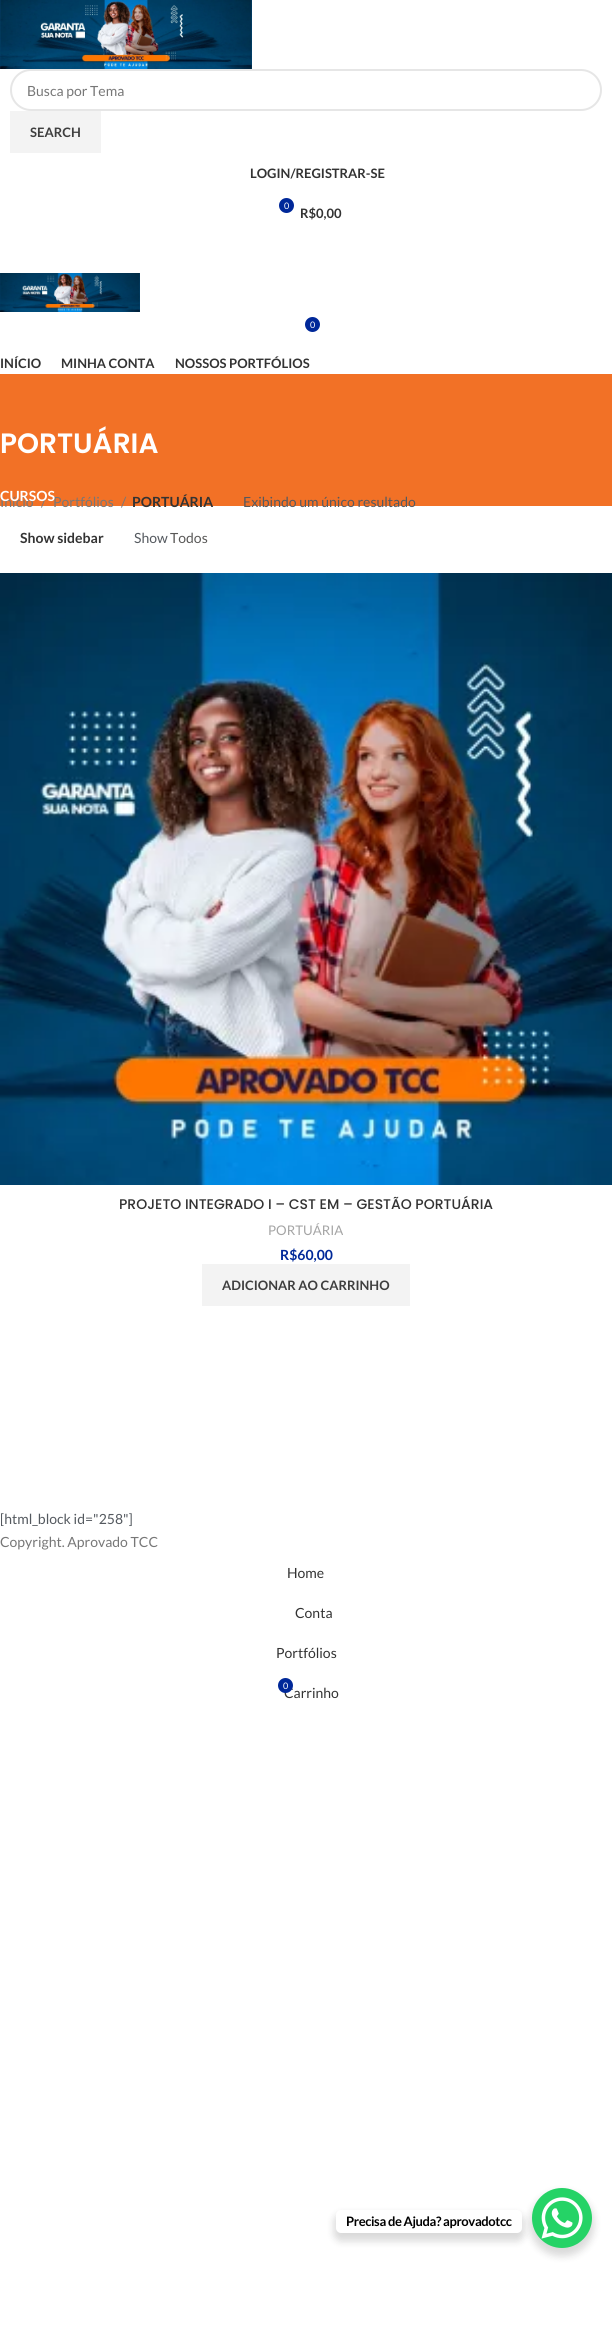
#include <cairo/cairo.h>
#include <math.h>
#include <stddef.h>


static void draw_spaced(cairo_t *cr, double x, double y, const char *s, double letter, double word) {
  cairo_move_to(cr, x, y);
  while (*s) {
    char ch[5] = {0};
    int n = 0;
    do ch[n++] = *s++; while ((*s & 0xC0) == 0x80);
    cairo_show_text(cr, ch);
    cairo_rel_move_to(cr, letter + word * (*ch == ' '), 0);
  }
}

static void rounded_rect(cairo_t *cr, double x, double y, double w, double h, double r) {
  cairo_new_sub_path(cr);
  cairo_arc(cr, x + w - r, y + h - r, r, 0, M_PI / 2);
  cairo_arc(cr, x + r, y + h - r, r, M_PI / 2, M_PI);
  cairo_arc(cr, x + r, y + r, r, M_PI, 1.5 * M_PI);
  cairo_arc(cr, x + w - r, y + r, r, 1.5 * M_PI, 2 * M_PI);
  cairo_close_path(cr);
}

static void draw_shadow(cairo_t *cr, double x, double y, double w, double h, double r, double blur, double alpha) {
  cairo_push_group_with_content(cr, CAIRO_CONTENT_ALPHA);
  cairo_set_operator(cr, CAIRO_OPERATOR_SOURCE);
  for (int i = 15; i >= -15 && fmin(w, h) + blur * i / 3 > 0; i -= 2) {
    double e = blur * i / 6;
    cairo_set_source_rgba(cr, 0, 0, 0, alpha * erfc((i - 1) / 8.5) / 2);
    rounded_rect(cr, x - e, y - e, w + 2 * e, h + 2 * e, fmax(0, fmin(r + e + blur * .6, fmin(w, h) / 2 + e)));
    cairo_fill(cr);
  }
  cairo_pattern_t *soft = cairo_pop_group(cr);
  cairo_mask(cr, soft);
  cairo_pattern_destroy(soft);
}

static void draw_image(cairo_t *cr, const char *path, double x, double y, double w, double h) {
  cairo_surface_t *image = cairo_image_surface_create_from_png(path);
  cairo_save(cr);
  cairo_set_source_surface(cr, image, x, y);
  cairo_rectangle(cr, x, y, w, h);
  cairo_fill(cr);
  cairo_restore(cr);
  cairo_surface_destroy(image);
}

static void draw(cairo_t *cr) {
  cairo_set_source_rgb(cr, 1, 1, 1);
  cairo_paint(cr);
  draw_image(cr, "images/1.png", 0, 0, 252, 69);
  rounded_rect(cr, 11, 70, 590, 40, 20);
  cairo_set_source_rgb(cr, 230 / 255.0, 230 / 255.0, 230 / 255.0);
  cairo_stroke(cr);
  cairo_set_source_rgb(cr, 243 / 255.0, 243 / 255.0, 243 / 255.0);
  cairo_rectangle(cr, 10, 111, 91, 42);
  cairo_fill(cr);
  cairo_set_source_rgb(cr, 0, 40 / 255.0, 153 / 255.0);
  cairo_arc(cr, 286.5, 205.5, 7.5, 0, 2 * M_PI);
  cairo_fill(cr);
  draw_image(cr, "images/2.png", 0, 273, 140, 39);
  cairo_arc(cr, 312.5, 324.5, 7.5, 0, 2 * M_PI);
  cairo_fill(cr);
  cairo_set_source_rgb(cr, 242 / 255.0, 113 / 255.0, 38 / 255.0);
  cairo_rectangle(cr, 0, 374, 612, 132);
  cairo_fill(cr);
  draw_image(cr, "images/3.png", 0, 573, 612, 612);
  cairo_set_source_rgb(cr, 243 / 255.0, 243 / 255.0, 243 / 255.0);
  cairo_rectangle(cr, 202, 1264, 208, 42);
  cairo_fill(cr);
  cairo_set_source_rgb(cr, 0, 0, 0);
  draw_shadow(cr, 530, 2192, 64, 64, 32, 4, 0.15);
  cairo_set_source_rgb(cr, 37 / 255.0, 211 / 255.0, 102 / 255.0);
  cairo_arc(cr, 562, 2218, 30, 0, 2 * M_PI);
  cairo_fill(cr);
  cairo_set_source_rgb(cr, 0, 0, 0);
  draw_shadow(cr, 334, 2214, 190, 27, 7, 4, 0.15);
  cairo_set_source_rgb(cr, 1, 1, 1);
  rounded_rect(cr, 336, 2210, 186, 23, 5);
  cairo_fill(cr);
  draw_image(cr, "images/4.png", 541, 2197, 42, 42);
  cairo_select_font_face(cr, "Lato", CAIRO_FONT_SLANT_NORMAL, CAIRO_FONT_WEIGHT_NORMAL);
  cairo_set_font_size(cr, 14);
  cairo_set_source_rgb(cr, 119 / 255.0, 119 / 255.0, 119 / 255.0);
  cairo_move_to(cr, 27, 96);
  cairo_show_text(cr, "Busca por Tema");
  cairo_select_font_face(cr, "Lato", CAIRO_FONT_SLANT_NORMAL, CAIRO_FONT_WEIGHT_BOLD);
  cairo_set_font_size(cr, 13);
  cairo_set_source_rgb(cr, 62 / 255.0, 62 / 255.0, 62 / 255.0);
  cairo_move_to(cr, 30, 137);
  cairo_show_text(cr, "SEARCH");
  cairo_set_source_rgb(cr, 51 / 255.0, 51 / 255.0, 51 / 255.0);
  cairo_move_to(cr, 250, 178);
  cairo_show_text(cr, "LOGIN/REGISTRAR-SE");
  cairo_select_font_face(cr, "Lato", CAIRO_FONT_SLANT_NORMAL, CAIRO_FONT_WEIGHT_NORMAL);
  cairo_set_font_size(cr, 9);
  cairo_set_source_rgb(cr, 1, 1, 1);
  cairo_move_to(cr, 284, 209);
  cairo_show_text(cr, "0");
  cairo_select_font_face(cr, "Lato", CAIRO_FONT_SLANT_NORMAL, CAIRO_FONT_WEIGHT_BOLD);
  cairo_set_font_size(cr, 13);
  cairo_set_source_rgb(cr, 51 / 255.0, 51 / 255.0, 51 / 255.0);
  cairo_move_to(cr, 300, 218);
  cairo_show_text(cr, "R$0,00");
  cairo_select_font_face(cr, "Lato", CAIRO_FONT_SLANT_NORMAL, CAIRO_FONT_WEIGHT_NORMAL);
  cairo_set_font_size(cr, 9);
  cairo_set_source_rgb(cr, 1, 1, 1);
  cairo_move_to(cr, 310, 328);
  cairo_show_text(cr, "0");
  cairo_select_font_face(cr, "Lato", CAIRO_FONT_SLANT_NORMAL, CAIRO_FONT_WEIGHT_BOLD);
  cairo_set_font_size(cr, 13);
  cairo_set_source_rgb(cr, 51 / 255.0, 51 / 255.0, 51 / 255.0);
  cairo_move_to(cr, 0, 368);
  cairo_show_text(cr, "INÍCIO");
  cairo_move_to(cr, 61, 368);
  cairo_show_text(cr, "MINHA CONTA");
  cairo_move_to(cr, 175, 368);
  cairo_show_text(cr, "NOSSOS PORTFÓLIOS");
  cairo_select_font_face(cr, "Poppins SemiBold", CAIRO_FONT_SLANT_NORMAL, CAIRO_FONT_WEIGHT_NORMAL);
  cairo_set_font_size(cr, 28);
  cairo_set_source_rgb(cr, 1, 1, 1);
  cairo_move_to(cr, 0, 453);
  cairo_show_text(cr, "PORTUÁRIA");
  cairo_select_font_face(cr, "Lato", CAIRO_FONT_SLANT_NORMAL, CAIRO_FONT_WEIGHT_NORMAL);
  cairo_set_font_size(cr, 14);
  cairo_set_source_rgb(cr, 119 / 255.0, 119 / 255.0, 119 / 255.0);
  cairo_move_to(cr, 0, 507);
  cairo_show_text(cr, "Início");
  cairo_move_to(cr, 41, 507);
  cairo_show_text(cr, "/");
  cairo_move_to(cr, 53, 507);
  cairo_show_text(cr, "Portfólios");
  cairo_select_font_face(cr, "Lato", CAIRO_FONT_SLANT_NORMAL, CAIRO_FONT_WEIGHT_BOLD);
  cairo_set_source_rgb(cr, 1, 1, 1);
  cairo_move_to(cr, 0, 501);
  cairo_show_text(cr, "CURSOS");
  cairo_select_font_face(cr, "Lato", CAIRO_FONT_SLANT_NORMAL, CAIRO_FONT_WEIGHT_NORMAL);
  cairo_set_source_rgb(cr, 119 / 255.0, 119 / 255.0, 119 / 255.0);
  cairo_move_to(cr, 121, 507);
  cairo_show_text(cr, "/");
  cairo_select_font_face(cr, "Lato", CAIRO_FONT_SLANT_NORMAL, CAIRO_FONT_WEIGHT_BOLD);
  cairo_set_source_rgb(cr, 51 / 255.0, 51 / 255.0, 51 / 255.0);
  cairo_move_to(cr, 132, 507);
  cairo_show_text(cr, "PORTUÁRIA");
  cairo_select_font_face(cr, "Lato", CAIRO_FONT_SLANT_NORMAL, CAIRO_FONT_WEIGHT_NORMAL);
  cairo_set_source_rgb(cr, 84 / 255.0, 89 / 255.0, 95 / 255.0);
  cairo_move_to(cr, 243, 507);
  cairo_show_text(cr, "Exibindo um único resultado");
  cairo_select_font_face(cr, "Lato", CAIRO_FONT_SLANT_NORMAL, CAIRO_FONT_WEIGHT_BOLD);
  cairo_set_source_rgb(cr, 51 / 255.0, 51 / 255.0, 51 / 255.0);
  cairo_move_to(cr, 20, 543);
  cairo_show_text(cr, "Show sidebar");
  cairo_select_font_face(cr, "Lato", CAIRO_FONT_SLANT_NORMAL, CAIRO_FONT_WEIGHT_NORMAL);
  cairo_set_source_rgb(cr, 84 / 255.0, 89 / 255.0, 95 / 255.0);
  cairo_move_to(cr, 134, 543);
  cairo_show_text(cr, "Show");
  cairo_set_source_rgb(cr, 89 / 255.0, 88 / 255.0, 87 / 255.0);
  cairo_move_to(cr, 170, 543);
  cairo_show_text(cr, "Todos");
  cairo_select_font_face(cr, "Poppins Medium", CAIRO_FONT_SLANT_NORMAL, CAIRO_FONT_WEIGHT_NORMAL);
  cairo_set_source_rgb(cr, 51 / 255.0, 51 / 255.0, 51 / 255.0);
  cairo_move_to(cr, 119, 1209);
  cairo_show_text(cr, "PROJETO INTEGRADO I – CST EM – GESTÃO PORTUÁRIA");
  cairo_select_font_face(cr, "Lato", CAIRO_FONT_SLANT_NORMAL, CAIRO_FONT_WEIGHT_NORMAL);
  cairo_set_font_size(cr, 13.25);
  cairo_set_source_rgb(cr, 165 / 255.0, 165 / 255.0, 165 / 255.0);
  cairo_move_to(cr, 268, 1235);
  cairo_show_text(cr, "PORTUÁRIA");
  cairo_select_font_face(cr, "Lato", CAIRO_FONT_SLANT_NORMAL, CAIRO_FONT_WEIGHT_BOLD);
  cairo_set_font_size(cr, 14);
  cairo_set_source_rgb(cr, 0, 40 / 255.0, 153 / 255.0);
  cairo_move_to(cr, 280, 1260);
  cairo_show_text(cr, "R$60,00");
  cairo_set_font_size(cr, 13);
  cairo_set_source_rgb(cr, 62 / 255.0, 62 / 255.0, 62 / 255.0);
  cairo_move_to(cr, 222, 1290);
  cairo_show_text(cr, "ADICIONAR AO CARRINHO");
  cairo_select_font_face(cr, "Lato", CAIRO_FONT_SLANT_NORMAL, CAIRO_FONT_WEIGHT_NORMAL);
  cairo_set_font_size(cr, 14);
  cairo_set_source_rgb(cr, 84 / 255.0, 89 / 255.0, 95 / 255.0);
  cairo_move_to(cr, 0, 1524);
  cairo_show_text(cr, "[html_block id=\"258\"]");
  cairo_set_source_rgb(cr, 119 / 255.0, 119 / 255.0, 119 / 255.0);
  cairo_move_to(cr, 0, 1547);
  cairo_show_text(cr, "Copyright. Aprovado TCC");
  cairo_set_source_rgb(cr, 51 / 255.0, 51 / 255.0, 51 / 255.0);
  cairo_move_to(cr, 287, 1578);
  cairo_show_text(cr, "Home");
  cairo_move_to(cr, 295, 1618);
  cairo_show_text(cr, "Conta");
  cairo_move_to(cr, 276, 1658);
  cairo_show_text(cr, "Portfólios");
  cairo_move_to(cr, 284, 1698);
  cairo_show_text(cr, "Carrinho");
  cairo_set_source_rgb(cr, 0, 40 / 255.0, 153 / 255.0);
  cairo_new_path(cr);
  cairo_arc(cr, 285.5, 1685.5, 7.5, 0, 2 * M_PI);
  cairo_fill(cr);
  cairo_set_font_size(cr, 9);
  cairo_set_source_rgb(cr, 1, 1, 1);
  cairo_move_to(cr, 283, 1689);
  cairo_show_text(cr, "0");
  cairo_select_font_face(cr, "Lato", CAIRO_FONT_SLANT_NORMAL, CAIRO_FONT_WEIGHT_BOLD);
  cairo_set_font_size(cr, 13);
  cairo_set_source_rgb(cr, 0, 0, 0);
  draw_spaced(cr, 346, 2226, "Precisa de Ajuda? aprovadotcc", -0.4, 0);
}

int main(void) {
  cairo_surface_t *surface = cairo_image_surface_create(CAIRO_FORMAT_RGB24, 612, 2348);
  cairo_t *cr = cairo_create(surface);
  cairo_font_options_t *options = cairo_font_options_create();
  cairo_font_options_set_hint_metrics(options, CAIRO_HINT_METRICS_OFF);
  cairo_font_options_set_hint_style(options, CAIRO_HINT_STYLE_NONE);
  cairo_set_font_options(cr, options);
  cairo_set_miter_limit(cr, 4);
  draw(cr);
  cairo_surface_write_to_png(surface, "out.png");
  cairo_font_options_destroy(options);
  cairo_destroy(cr);
  cairo_surface_destroy(surface);
  return 0;
}
